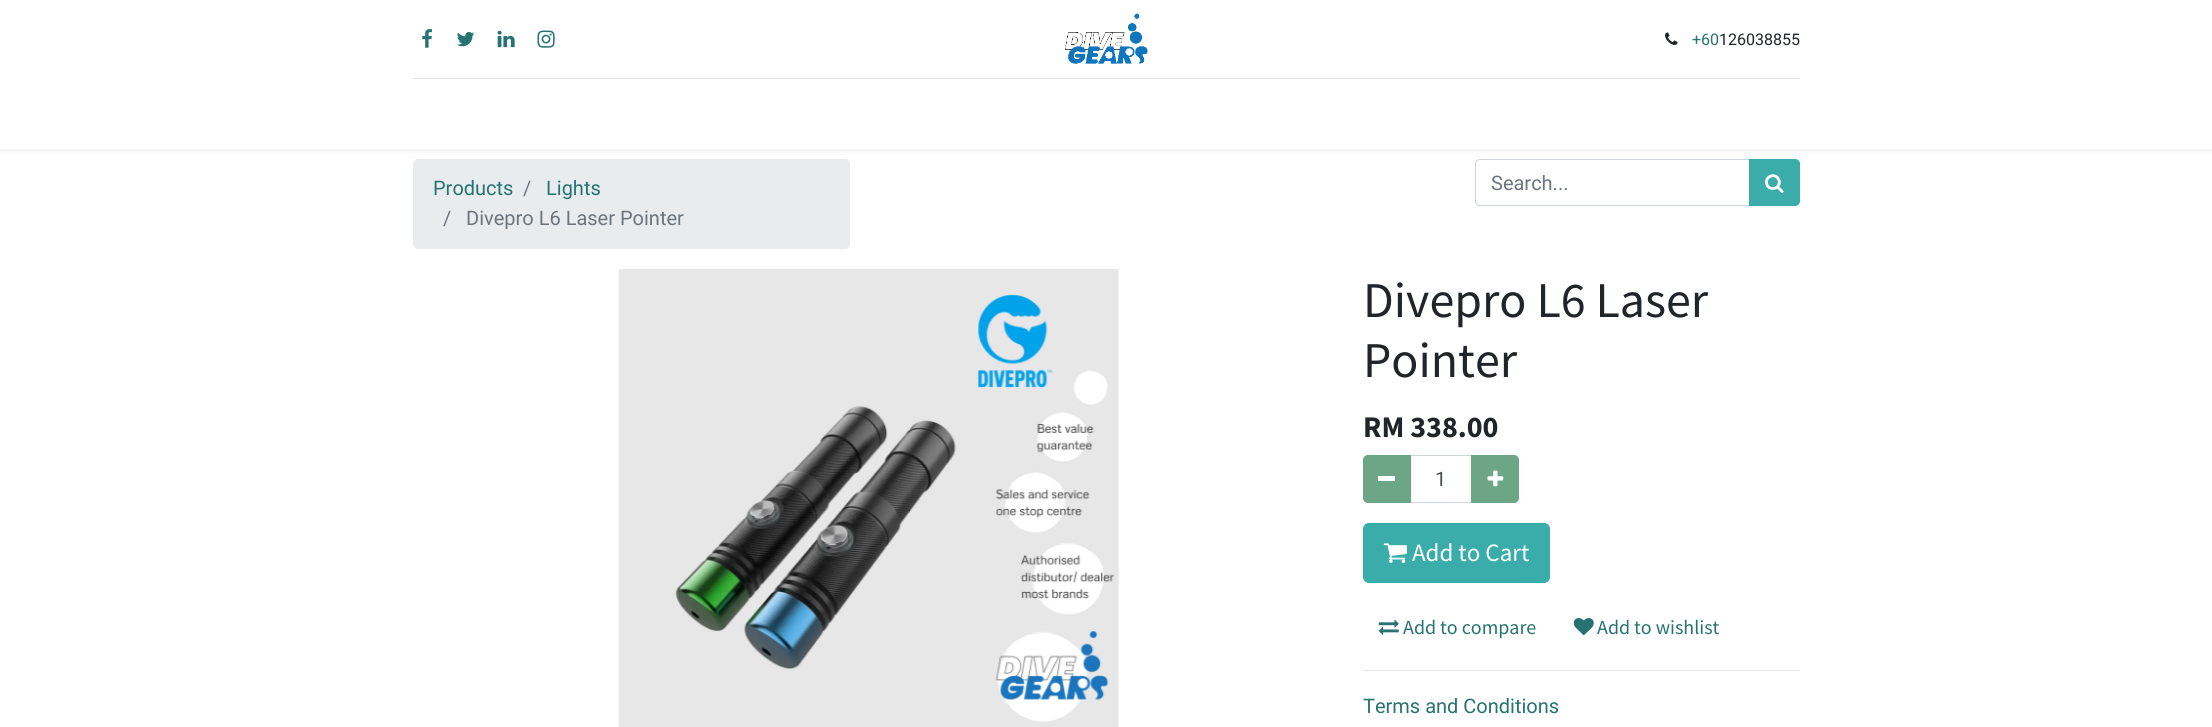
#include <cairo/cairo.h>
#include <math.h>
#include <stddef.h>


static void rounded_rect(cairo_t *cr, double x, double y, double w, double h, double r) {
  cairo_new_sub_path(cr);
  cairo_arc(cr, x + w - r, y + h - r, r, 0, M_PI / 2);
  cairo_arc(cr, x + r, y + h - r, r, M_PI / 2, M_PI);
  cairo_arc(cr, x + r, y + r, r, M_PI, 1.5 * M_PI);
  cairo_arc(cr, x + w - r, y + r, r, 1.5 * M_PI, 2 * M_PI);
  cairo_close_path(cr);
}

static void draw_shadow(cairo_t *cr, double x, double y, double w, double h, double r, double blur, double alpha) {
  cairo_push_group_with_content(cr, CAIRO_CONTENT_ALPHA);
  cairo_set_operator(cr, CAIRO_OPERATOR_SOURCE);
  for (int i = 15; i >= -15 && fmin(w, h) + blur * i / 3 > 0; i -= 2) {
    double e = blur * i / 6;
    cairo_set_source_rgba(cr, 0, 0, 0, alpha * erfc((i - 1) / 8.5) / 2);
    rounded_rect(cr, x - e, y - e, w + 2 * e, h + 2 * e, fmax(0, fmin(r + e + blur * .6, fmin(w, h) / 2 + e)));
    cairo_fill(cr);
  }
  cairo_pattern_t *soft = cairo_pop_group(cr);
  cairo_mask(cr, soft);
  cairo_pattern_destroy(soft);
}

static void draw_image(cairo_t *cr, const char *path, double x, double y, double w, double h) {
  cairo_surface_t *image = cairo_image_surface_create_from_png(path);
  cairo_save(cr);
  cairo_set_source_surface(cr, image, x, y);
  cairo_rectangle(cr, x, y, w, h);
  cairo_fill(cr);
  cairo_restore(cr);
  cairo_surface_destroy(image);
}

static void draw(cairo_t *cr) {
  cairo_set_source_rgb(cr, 1, 1, 1);
  cairo_paint(cr);
  cairo_set_source_rgb(cr, 233 / 255.0, 236 / 255.0, 239 / 255.0);
  rounded_rect(cr, 413, 159, 437, 90, 5);
  cairo_fill(cr);
  cairo_new_path(cr);
  cairo_move_to(cr, 1480, 159.5);
  cairo_line_to(cr, 1749.5, 159.5);
  cairo_line_to(cr, 1749.5, 205.5);
  cairo_line_to(cr, 1480, 205.5);
  cairo_curve_to(cr, 1477.5, 205.5, 1475.5, 203.5, 1475.5, 201);
  cairo_line_to(cr, 1475.5, 164);
  cairo_curve_to(cr, 1475.5, 161.5, 1477.5, 159.5, 1480, 159.5);
  cairo_close_path(cr);
  cairo_set_source_rgb(cr, 206 / 255.0, 212 / 255.0, 218 / 255.0);
  cairo_set_line_width(cr, 1);
  cairo_stroke(cr);
  cairo_set_source_rgb(cr, 58 / 255.0, 173 / 255.0, 170 / 255.0);
  cairo_new_path(cr);
  cairo_move_to(cr, 1749.5, 159.5);
  cairo_line_to(cr, 1795, 159.5);
  cairo_curve_to(cr, 1797.5, 159.5, 1799.5, 161.5, 1799.5, 164);
  cairo_line_to(cr, 1799.5, 201);
  cairo_curve_to(cr, 1799.5, 203.5, 1797.5, 205.5, 1795, 205.5);
  cairo_line_to(cr, 1749.5, 205.5);
  cairo_close_path(cr);
  cairo_fill_preserve(cr);
  cairo_stroke(cr);
  cairo_set_source_rgb(cr, 0, 0, 0);
  draw_shadow(cr, 0, 3, 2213, 148, 0, 2.5, 0.07);
  cairo_set_source_rgb(cr, 1, 1, 1);
  cairo_rectangle(cr, 0, 0, 2212, 149);
  cairo_fill(cr);
  draw_image(cr, "images/1.png", 422, 29, 10, 19);
  draw_image(cr, "images/2.png", 457, 32, 18, 15);
  draw_image(cr, "images/3.png", 497, 30, 18, 18);
  draw_image(cr, "images/4.png", 537, 30, 18, 18);
  draw_image(cr, "images/5.png", 1065, 13, 83, 51);
  draw_image(cr, "images/6.png", 1665, 32, 13, 13);
  cairo_set_source_rgb(cr, 222 / 255.0, 226 / 255.0, 230 / 255.0);
  cairo_rectangle(cr, 413, 78, 1387, 1);
  cairo_fill(cr);
  draw_image(cr, "images/7.png", 1765, 174, 19, 19);
  draw_image(cr, "images/8.png", 618, 269, 501, 458);
  cairo_rectangle(cr, 1410.5, 455.5, 62, 47);
  cairo_set_source_rgb(cr, 206 / 255.0, 212 / 255.0, 218 / 255.0);
  cairo_stroke(cr);
  cairo_set_source_rgb(cr, 108 / 255.0, 166 / 255.0, 135 / 255.0);
  cairo_new_path(cr);
  cairo_move_to(cr, 1368, 455.5);
  cairo_line_to(cr, 1410.5, 455.5);
  cairo_line_to(cr, 1410.5, 502.5);
  cairo_line_to(cr, 1368, 502.5);
  cairo_curve_to(cr, 1365.5, 502.5, 1363.5, 500.5, 1363.5, 498);
  cairo_line_to(cr, 1363.5, 460);
  cairo_curve_to(cr, 1363.5, 457.5, 1365.5, 455.5, 1368, 455.5);
  cairo_close_path(cr);
  cairo_fill_preserve(cr);
  cairo_stroke(cr);
  cairo_set_source_rgb(cr, 1, 1, 1);
  cairo_rectangle(cr, 1378, 476, 17, 5);
  cairo_fill(cr);
  cairo_set_source_rgb(cr, 108 / 255.0, 166 / 255.0, 135 / 255.0);
  cairo_new_path(cr);
  cairo_move_to(cr, 1471.5, 455.5);
  cairo_line_to(cr, 1514, 455.5);
  cairo_curve_to(cr, 1516.5, 455.5, 1518.5, 457.5, 1518.5, 460);
  cairo_line_to(cr, 1518.5, 498);
  cairo_curve_to(cr, 1518.5, 500.5, 1516.5, 502.5, 1514, 502.5);
  cairo_line_to(cr, 1471.5, 502.5);
  cairo_close_path(cr);
  cairo_fill_preserve(cr);
  cairo_stroke(cr);
  draw_image(cr, "images/9.png", 1487, 470, 17, 17);
  cairo_set_source_rgb(cr, 58 / 255.0, 173 / 255.0, 170 / 255.0);
  rounded_rect(cr, 1363.5, 523.5, 186, 59, 5.5);
  cairo_fill_preserve(cr);
  cairo_stroke(cr);
  draw_image(cr, "images/10.png", 1383, 543, 24, 20);
  draw_image(cr, "images/11.png", 1378, 619, 21, 16);
  draw_image(cr, "images/12.png", 1573, 618, 21, 18);
  cairo_set_source_rgb(cr, 230 / 255.0, 230 / 255.0, 230 / 255.0);
  cairo_rectangle(cr, 1363, 670, 437, 1);
  cairo_fill(cr);
  cairo_select_font_face(cr, "Roboto", CAIRO_FONT_SLANT_NORMAL, CAIRO_FONT_WEIGHT_NORMAL);
  cairo_set_font_size(cr, 16);
  cairo_set_source_rgb(cr, 38 / 255.0, 115 / 255.0, 114 / 255.0);
  cairo_move_to(cr, 1692, 45);
  cairo_show_text(cr, "+60");
  cairo_set_source_rgb(cr, 33 / 255.0, 37 / 255.0, 41 / 255.0);
  cairo_move_to(cr, 1719, 45);
  cairo_show_text(cr, "126038855");
  cairo_set_font_size(cr, 20);
  cairo_set_source_rgb(cr, 38 / 255.0, 115 / 255.0, 114 / 255.0);
  cairo_move_to(cr, 433, 195);
  cairo_show_text(cr, "Products");
  cairo_set_source_rgb(cr, 108 / 255.0, 117 / 255.0, 125 / 255.0);
  cairo_move_to(cr, 523, 195);
  cairo_show_text(cr, "/");
  cairo_set_source_rgb(cr, 38 / 255.0, 115 / 255.0, 114 / 255.0);
  cairo_move_to(cr, 546, 195);
  cairo_show_text(cr, "Lights");
  cairo_set_source_rgb(cr, 108 / 255.0, 117 / 255.0, 125 / 255.0);
  cairo_move_to(cr, 443, 225);
  cairo_show_text(cr, "/");
  cairo_move_to(cr, 466, 225);
  cairo_show_text(cr, "Divepro L6 Laser Pointer");
  cairo_move_to(cr, 1491, 190);
  cairo_show_text(cr, "Search...");
  cairo_select_font_face(cr, "Source Sans Pro", CAIRO_FONT_SLANT_NORMAL, CAIRO_FONT_WEIGHT_NORMAL);
  cairo_set_font_size(cr, 50);
  cairo_set_source_rgb(cr, 33 / 255.0, 37 / 255.0, 41 / 255.0);
  cairo_move_to(cr, 1363, 317);
  cairo_show_text(cr, "Divepro L6 Laser");
  cairo_move_to(cr, 1363, 377);
  cairo_show_text(cr, "Pointer");
  cairo_select_font_face(cr, "Source Sans Pro", CAIRO_FONT_SLANT_NORMAL, CAIRO_FONT_WEIGHT_BOLD);
  cairo_set_font_size(cr, 30);
  cairo_move_to(cr, 1363, 437);
  cairo_show_text(cr, "RM 338.00");
  cairo_select_font_face(cr, "Roboto", CAIRO_FONT_SLANT_NORMAL, CAIRO_FONT_WEIGHT_NORMAL);
  cairo_set_font_size(cr, 20);
  cairo_set_source_rgb(cr, 73 / 255.0, 80 / 255.0, 87 / 255.0);
  cairo_move_to(cr, 1435, 486);
  cairo_show_text(cr, "1");
  cairo_select_font_face(cr, "Source Sans Pro", CAIRO_FONT_SLANT_NORMAL, CAIRO_FONT_WEIGHT_NORMAL);
  cairo_set_font_size(cr, 25);
  cairo_set_source_rgb(cr, 1, 1, 1);
  cairo_move_to(cr, 1412, 561);
  cairo_show_text(cr, "Add to Cart");
  cairo_set_font_size(cr, 20);
  cairo_set_source_rgb(cr, 38 / 255.0, 115 / 255.0, 114 / 255.0);
  cairo_move_to(cr, 1403, 634);
  cairo_show_text(cr, "Add to compare");
  cairo_move_to(cr, 1597, 634);
  cairo_show_text(cr, "Add to wishlist");
  cairo_select_font_face(cr, "Roboto", CAIRO_FONT_SLANT_NORMAL, CAIRO_FONT_WEIGHT_NORMAL);
  cairo_move_to(cr, 1363, 713);
  cairo_show_text(cr, "Terms and Conditions");
}

int main(void) {
  cairo_surface_t *surface = cairo_image_surface_create(CAIRO_FORMAT_RGB24, 2212, 727);
  cairo_t *cr = cairo_create(surface);
  cairo_font_options_t *options = cairo_font_options_create();
  cairo_font_options_set_hint_metrics(options, CAIRO_HINT_METRICS_OFF);
  cairo_font_options_set_hint_style(options, CAIRO_HINT_STYLE_NONE);
  cairo_set_font_options(cr, options);
  cairo_set_miter_limit(cr, 4);
  draw(cr);
  cairo_surface_write_to_png(surface, "out.png");
  cairo_font_options_destroy(options);
  cairo_destroy(cr);
  cairo_surface_destroy(surface);
  return 0;
}
